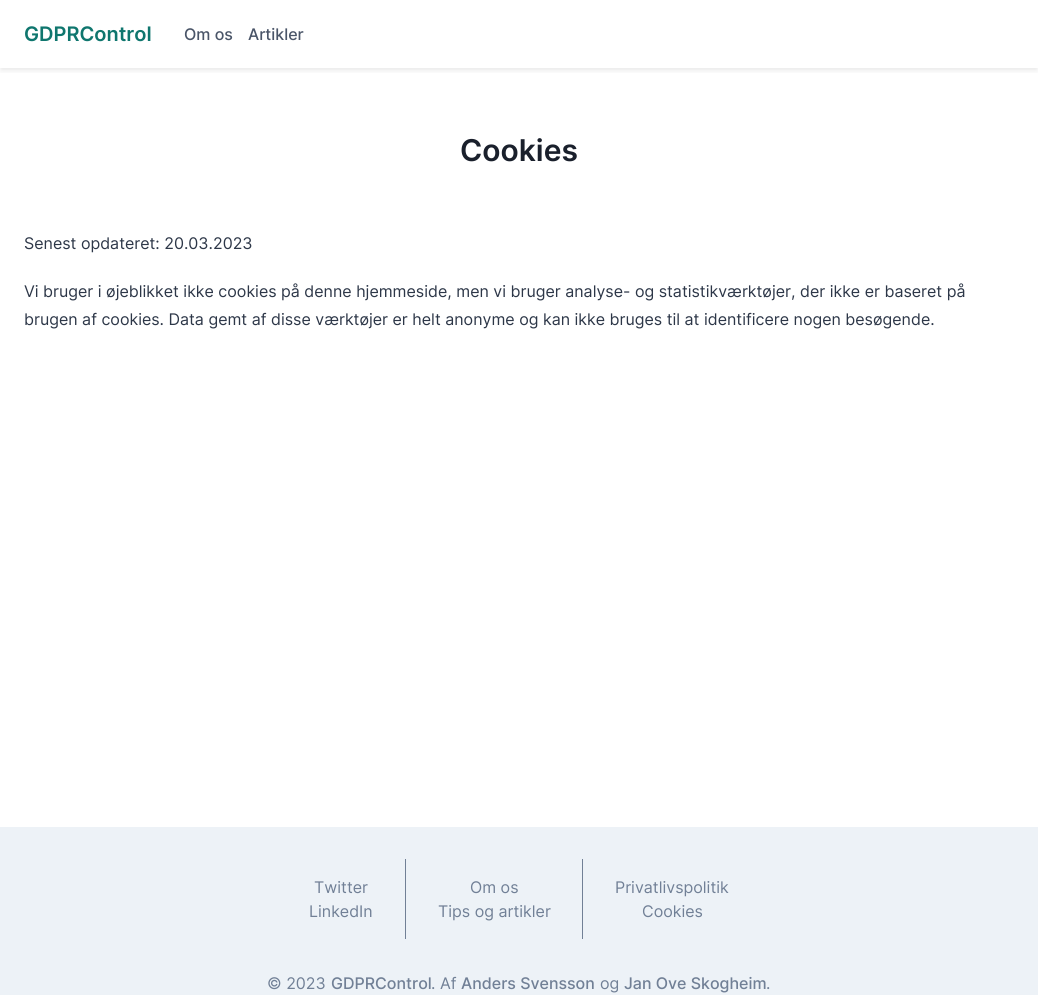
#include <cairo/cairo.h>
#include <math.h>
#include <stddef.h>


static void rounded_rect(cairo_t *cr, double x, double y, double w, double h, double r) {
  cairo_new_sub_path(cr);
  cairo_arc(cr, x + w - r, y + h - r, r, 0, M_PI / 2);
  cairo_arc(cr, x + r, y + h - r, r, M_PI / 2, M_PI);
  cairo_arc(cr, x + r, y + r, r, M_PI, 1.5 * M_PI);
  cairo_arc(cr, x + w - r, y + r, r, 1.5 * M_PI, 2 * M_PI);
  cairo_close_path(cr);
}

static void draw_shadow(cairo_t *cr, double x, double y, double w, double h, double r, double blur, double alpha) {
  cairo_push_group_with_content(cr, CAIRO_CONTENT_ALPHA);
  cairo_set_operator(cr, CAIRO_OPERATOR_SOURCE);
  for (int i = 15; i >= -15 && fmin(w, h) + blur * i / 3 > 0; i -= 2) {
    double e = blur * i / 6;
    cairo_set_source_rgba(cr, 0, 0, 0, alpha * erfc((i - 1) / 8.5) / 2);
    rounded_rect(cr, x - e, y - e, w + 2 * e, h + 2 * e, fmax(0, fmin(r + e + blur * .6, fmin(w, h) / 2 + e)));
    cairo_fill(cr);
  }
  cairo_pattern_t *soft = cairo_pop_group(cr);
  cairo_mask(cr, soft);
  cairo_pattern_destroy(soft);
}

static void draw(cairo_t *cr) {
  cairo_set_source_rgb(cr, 1, 1, 1);
  cairo_paint(cr);
  cairo_save(cr);
  cairo_rectangle(cr, 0, 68, 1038, 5);
  cairo_clip(cr);
  cairo_set_source_rgb(cr, 0, 0, 0);
  draw_shadow(cr, 1, 4, 1036, 66, 0, 3, 0.1);
  cairo_restore(cr);
  cairo_set_source_rgb(cr, 237 / 255.0, 242 / 255.0, 247 / 255.0);
  cairo_rectangle(cr, 0, 827, 1038, 168);
  cairo_fill(cr);
  cairo_set_source_rgb(cr, 113 / 255.0, 128 / 255.0, 150 / 255.0);
  cairo_rectangle(cr, 405, 859, 1, 80);
  cairo_fill(cr);
  cairo_rectangle(cr, 582, 859, 1, 80);
  cairo_fill(cr);
  cairo_select_font_face(cr, "Inter SemiBold", CAIRO_FONT_SLANT_NORMAL, CAIRO_FONT_WEIGHT_NORMAL);
  cairo_set_font_size(cr, 20);
  cairo_set_source_rgb(cr, 15 / 255.0, 118 / 255.0, 110 / 255.0);
  cairo_move_to(cr, 24, 41);
  cairo_show_text(cr, "GDPRControl");
  cairo_select_font_face(cr, "Inter Medium", CAIRO_FONT_SLANT_NORMAL, CAIRO_FONT_WEIGHT_NORMAL);
  cairo_set_font_size(cr, 16);
  cairo_set_source_rgb(cr, 74 / 255.0, 85 / 255.0, 104 / 255.0);
  cairo_move_to(cr, 184, 40);
  cairo_show_text(cr, "Om os");
  cairo_move_to(cr, 248, 40);
  cairo_show_text(cr, "Artikler");
  cairo_select_font_face(cr, "Inter SemiBold", CAIRO_FONT_SLANT_NORMAL, CAIRO_FONT_WEIGHT_NORMAL);
  cairo_set_font_size(cr, 30);
  cairo_set_source_rgb(cr, 26 / 255.0, 32 / 255.0, 44 / 255.0);
  cairo_move_to(cr, 460, 161);
  cairo_show_text(cr, "Cookies");
  cairo_select_font_face(cr, "Inter", CAIRO_FONT_SLANT_NORMAL, CAIRO_FONT_WEIGHT_NORMAL);
  cairo_set_font_size(cr, 16);
  cairo_set_source_rgb(cr, 45 / 255.0, 55 / 255.0, 72 / 255.0);
  cairo_move_to(cr, 24, 249);
  cairo_show_text(cr, "Senest opdateret: 20.03.2023");
  cairo_move_to(cr, 24, 297);
  cairo_show_text(cr, "Vi bruger i øjeblikket ikke cookies på denne hjemmeside, men vi bruger analyse- og statistikværktøjer, der ikke er baseret på");
  cairo_move_to(cr, 24, 325);
  cairo_show_text(cr, "brugen af cookies. Data gemt af disse værktøjer er helt anonyme og kan ikke bruges til at identificere nogen besøgende.");
  cairo_set_source_rgb(cr, 113 / 255.0, 128 / 255.0, 150 / 255.0);
  cairo_move_to(cr, 314, 893);
  cairo_show_text(cr, "Twitter");
  cairo_move_to(cr, 309, 917);
  cairo_show_text(cr, "LinkedIn");
  cairo_move_to(cr, 470, 893);
  cairo_show_text(cr, "Om os");
  cairo_move_to(cr, 438, 917);
  cairo_show_text(cr, "Tips og artikler");
  cairo_move_to(cr, 615, 893);
  cairo_show_text(cr, "Privatlivspolitik");
  cairo_move_to(cr, 642, 917);
  cairo_show_text(cr, "Cookies");
  cairo_move_to(cr, 267, 989);
  cairo_show_text(cr, "© 2023");
  cairo_select_font_face(cr, "Inter Medium", CAIRO_FONT_SLANT_NORMAL, CAIRO_FONT_WEIGHT_NORMAL);
  cairo_move_to(cr, 331, 989);
  cairo_show_text(cr, "GDPRControl");
  cairo_select_font_face(cr, "Inter", CAIRO_FONT_SLANT_NORMAL, CAIRO_FONT_WEIGHT_NORMAL);
  cairo_move_to(cr, 431, 989);
  cairo_show_text(cr, ". Af");
  cairo_select_font_face(cr, "Inter Medium", CAIRO_FONT_SLANT_NORMAL, CAIRO_FONT_WEIGHT_NORMAL);
  cairo_move_to(cr, 461, 989);
  cairo_show_text(cr, "Anders Svensson");
  cairo_select_font_face(cr, "Inter", CAIRO_FONT_SLANT_NORMAL, CAIRO_FONT_WEIGHT_NORMAL);
  cairo_move_to(cr, 600, 989);
  cairo_show_text(cr, "og");
  cairo_select_font_face(cr, "Inter Medium", CAIRO_FONT_SLANT_NORMAL, CAIRO_FONT_WEIGHT_NORMAL);
  cairo_move_to(cr, 624, 989);
  cairo_show_text(cr, "Jan Ove Skogheim");
  cairo_select_font_face(cr, "Inter", CAIRO_FONT_SLANT_NORMAL, CAIRO_FONT_WEIGHT_NORMAL);
  cairo_move_to(cr, 766, 989);
  cairo_show_text(cr, ".");
}

int main(void) {
  cairo_surface_t *surface = cairo_image_surface_create(CAIRO_FORMAT_RGB24, 1038, 995);
  cairo_t *cr = cairo_create(surface);
  cairo_font_options_t *options = cairo_font_options_create();
  cairo_font_options_set_hint_metrics(options, CAIRO_HINT_METRICS_OFF);
  cairo_font_options_set_hint_style(options, CAIRO_HINT_STYLE_NONE);
  cairo_set_font_options(cr, options);
  cairo_set_miter_limit(cr, 4);
  draw(cr);
  cairo_surface_write_to_png(surface, "out.png");
  cairo_font_options_destroy(options);
  cairo_destroy(cr);
  cairo_surface_destroy(surface);
  return 0;
}
